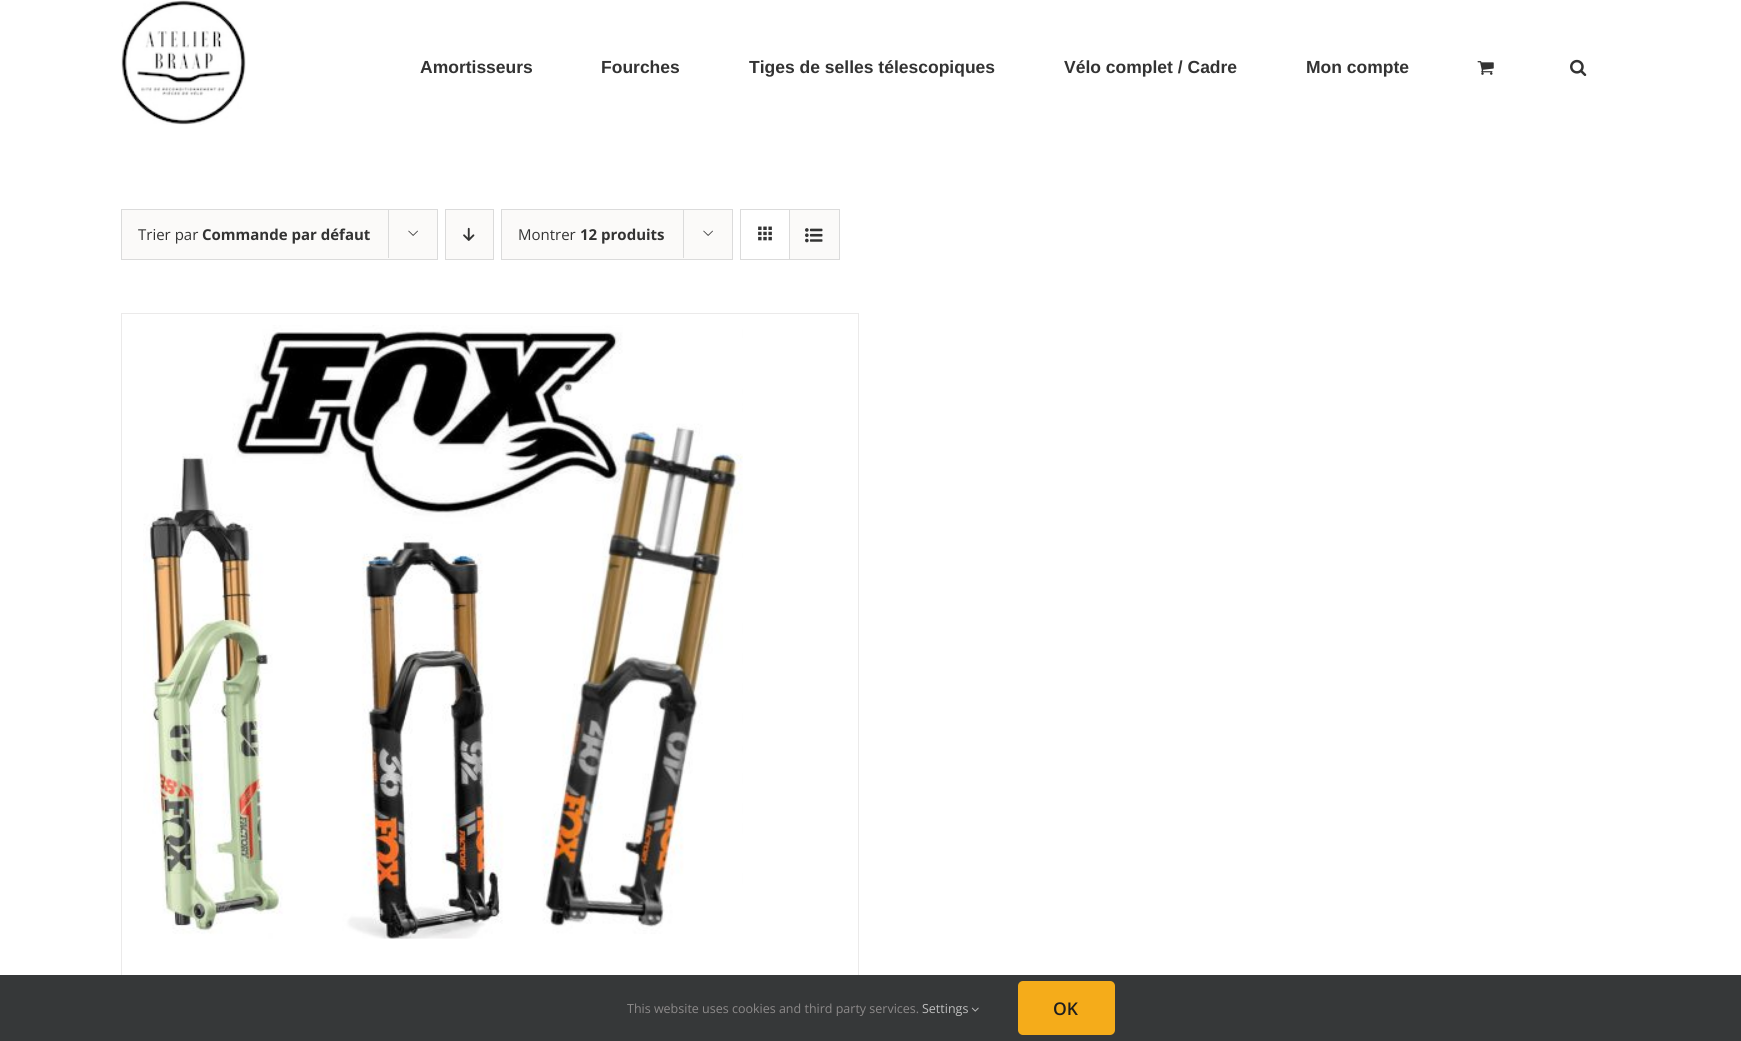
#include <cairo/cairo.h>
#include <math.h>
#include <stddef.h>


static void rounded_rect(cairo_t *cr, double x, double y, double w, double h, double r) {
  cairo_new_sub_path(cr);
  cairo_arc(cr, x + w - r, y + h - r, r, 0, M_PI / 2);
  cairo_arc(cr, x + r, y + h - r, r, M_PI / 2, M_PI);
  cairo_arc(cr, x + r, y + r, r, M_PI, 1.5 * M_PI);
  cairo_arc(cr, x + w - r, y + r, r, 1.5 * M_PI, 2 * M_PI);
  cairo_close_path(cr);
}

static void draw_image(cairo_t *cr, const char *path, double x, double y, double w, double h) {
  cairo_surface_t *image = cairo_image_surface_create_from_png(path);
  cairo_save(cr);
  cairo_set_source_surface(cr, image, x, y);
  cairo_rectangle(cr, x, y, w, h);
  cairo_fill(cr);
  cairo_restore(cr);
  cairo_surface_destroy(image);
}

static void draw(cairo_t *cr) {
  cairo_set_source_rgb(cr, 1, 1, 1);
  cairo_paint(cr);
  draw_image(cr, "images/1.png", 121, 0, 125, 125);
  draw_image(cr, "images/2.png", 1477, 61, 17, 14);
  draw_image(cr, "images/3.png", 1570, 59, 17, 17);
  cairo_set_source_rgb(cr, 251 / 255.0, 250 / 255.0, 249 / 255.0);
  cairo_rectangle(cr, 121.5, 209.5, 316, 50);
  cairo_fill_preserve(cr);
  cairo_set_source_rgb(cr, 219 / 255.0, 219 / 255.0, 219 / 255.0);
  cairo_set_line_width(cr, 1);
  cairo_stroke(cr);
  cairo_rectangle(cr, 388, 209, 1, 49);
  cairo_fill(cr);
  draw_image(cr, "images/4.png", 408, 230, 10, 6);
  cairo_set_source_rgb(cr, 251 / 255.0, 250 / 255.0, 249 / 255.0);
  cairo_rectangle(cr, 445.5, 209.5, 48, 50);
  cairo_fill_preserve(cr);
  cairo_set_source_rgb(cr, 219 / 255.0, 219 / 255.0, 219 / 255.0);
  cairo_stroke(cr);
  draw_image(cr, "images/5.png", 463, 227, 12, 14);
  cairo_set_source_rgb(cr, 251 / 255.0, 250 / 255.0, 249 / 255.0);
  cairo_rectangle(cr, 501.5, 209.5, 231, 50);
  cairo_fill_preserve(cr);
  cairo_set_source_rgb(cr, 219 / 255.0, 219 / 255.0, 219 / 255.0);
  cairo_stroke(cr);
  cairo_rectangle(cr, 683, 209, 1, 49);
  cairo_fill(cr);
  draw_image(cr, "images/4.png", 703, 230, 10, 6);
  cairo_rectangle(cr, 740.5, 209.5, 99, 50);
  cairo_stroke(cr);
  cairo_rectangle(cr, 789, 210, 1, 49);
  cairo_fill(cr);
  draw_image(cr, "images/6.png", 758, 226, 14, 15);
  cairo_set_source_rgb(cr, 251 / 255.0, 250 / 255.0, 249 / 255.0);
  cairo_rectangle(cr, 790, 210, 49, 49);
  cairo_fill(cr);
  draw_image(cr, "images/7.png", 805, 228, 18, 15);
  cairo_set_source_rgb(cr, 235 / 255.0, 234 / 255.0, 234 / 255.0);
  cairo_rectangle(cr, 121, 313, 738, 1);
  cairo_fill(cr);
  cairo_rectangle(cr, 858, 313, 1, 662);
  cairo_fill(cr);
  cairo_rectangle(cr, 121, 313, 1, 662);
  cairo_fill(cr);
  draw_image(cr, "images/8.png", 143, 325, 600, 614);
  cairo_set_source_rgb(cr, 54 / 255.0, 56 / 255.0, 57 / 255.0);
  cairo_rectangle(cr, 0, 975, 1741, 66);
  cairo_fill(cr);
  draw_image(cr, "images/9.png", 971, 1007, 8, 5);
  cairo_set_source_rgb(cr, 245 / 255.0, 172 / 255.0, 26 / 255.0);
  rounded_rect(cr, 1018, 981, 97, 54, 5);
  cairo_fill(cr);
  cairo_select_font_face(cr, "Liberation Sans", CAIRO_FONT_SLANT_NORMAL, CAIRO_FONT_WEIGHT_BOLD);
  cairo_set_font_size(cr, 17.5);
  cairo_set_source_rgb(cr, 51 / 255.0, 51 / 255.0, 51 / 255.0);
  cairo_move_to(cr, 420, 73);
  cairo_show_text(cr, "Amortisseurs");
  cairo_move_to(cr, 601, 73);
  cairo_show_text(cr, "Fourches");
  cairo_move_to(cr, 749, 73);
  cairo_show_text(cr, "Tiges de selles télescopiques");
  cairo_move_to(cr, 1064, 73);
  cairo_show_text(cr, "Vélo complet / Cadre");
  cairo_move_to(cr, 1306, 73);
  cairo_show_text(cr, "Mon compte");
  cairo_select_font_face(cr, "Open Sans", CAIRO_FONT_SLANT_NORMAL, CAIRO_FONT_WEIGHT_NORMAL);
  cairo_set_font_size(cr, 15);
  cairo_move_to(cr, 138, 240);
  cairo_show_text(cr, "Trier par");
  cairo_select_font_face(cr, "Open Sans", CAIRO_FONT_SLANT_NORMAL, CAIRO_FONT_WEIGHT_BOLD);
  cairo_move_to(cr, 202, 240);
  cairo_show_text(cr, "Commande par défaut");
  cairo_select_font_face(cr, "Open Sans", CAIRO_FONT_SLANT_NORMAL, CAIRO_FONT_WEIGHT_NORMAL);
  cairo_move_to(cr, 518, 240);
  cairo_show_text(cr, "Montrer");
  cairo_select_font_face(cr, "Open Sans", CAIRO_FONT_SLANT_NORMAL, CAIRO_FONT_WEIGHT_BOLD);
  cairo_move_to(cr, 580, 240);
  cairo_show_text(cr, "12 produits");
  cairo_select_font_face(cr, "Open Sans", CAIRO_FONT_SLANT_NORMAL, CAIRO_FONT_WEIGHT_NORMAL);
  cairo_set_font_size(cr, 12.5);
  cairo_set_source_rgb(cr, 140 / 255.0, 137 / 255.0, 137 / 255.0);
  cairo_move_to(cr, 627, 1013);
  cairo_show_text(cr, "This website uses cookies and third party services.");
  cairo_set_source_rgb(cr, 191 / 255.0, 191 / 255.0, 191 / 255.0);
  cairo_move_to(cr, 922, 1013);
  cairo_show_text(cr, "Settings");
  cairo_select_font_face(cr, "Open Sans SemiBold", CAIRO_FONT_SLANT_NORMAL, CAIRO_FONT_WEIGHT_NORMAL);
  cairo_set_font_size(cr, 17.5);
  cairo_set_source_rgb(cr, 30 / 255.0, 30 / 255.0, 30 / 255.0);
  cairo_move_to(cr, 1053, 1015);
  cairo_show_text(cr, "OK");
}

int main(void) {
  cairo_surface_t *surface = cairo_image_surface_create(CAIRO_FORMAT_RGB24, 1741, 1041);
  cairo_t *cr = cairo_create(surface);
  cairo_font_options_t *options = cairo_font_options_create();
  cairo_font_options_set_hint_metrics(options, CAIRO_HINT_METRICS_OFF);
  cairo_font_options_set_hint_style(options, CAIRO_HINT_STYLE_NONE);
  cairo_set_font_options(cr, options);
  cairo_set_miter_limit(cr, 4);
  draw(cr);
  cairo_surface_write_to_png(surface, "out.png");
  cairo_font_options_destroy(options);
  cairo_destroy(cr);
  cairo_surface_destroy(surface);
  return 0;
}
